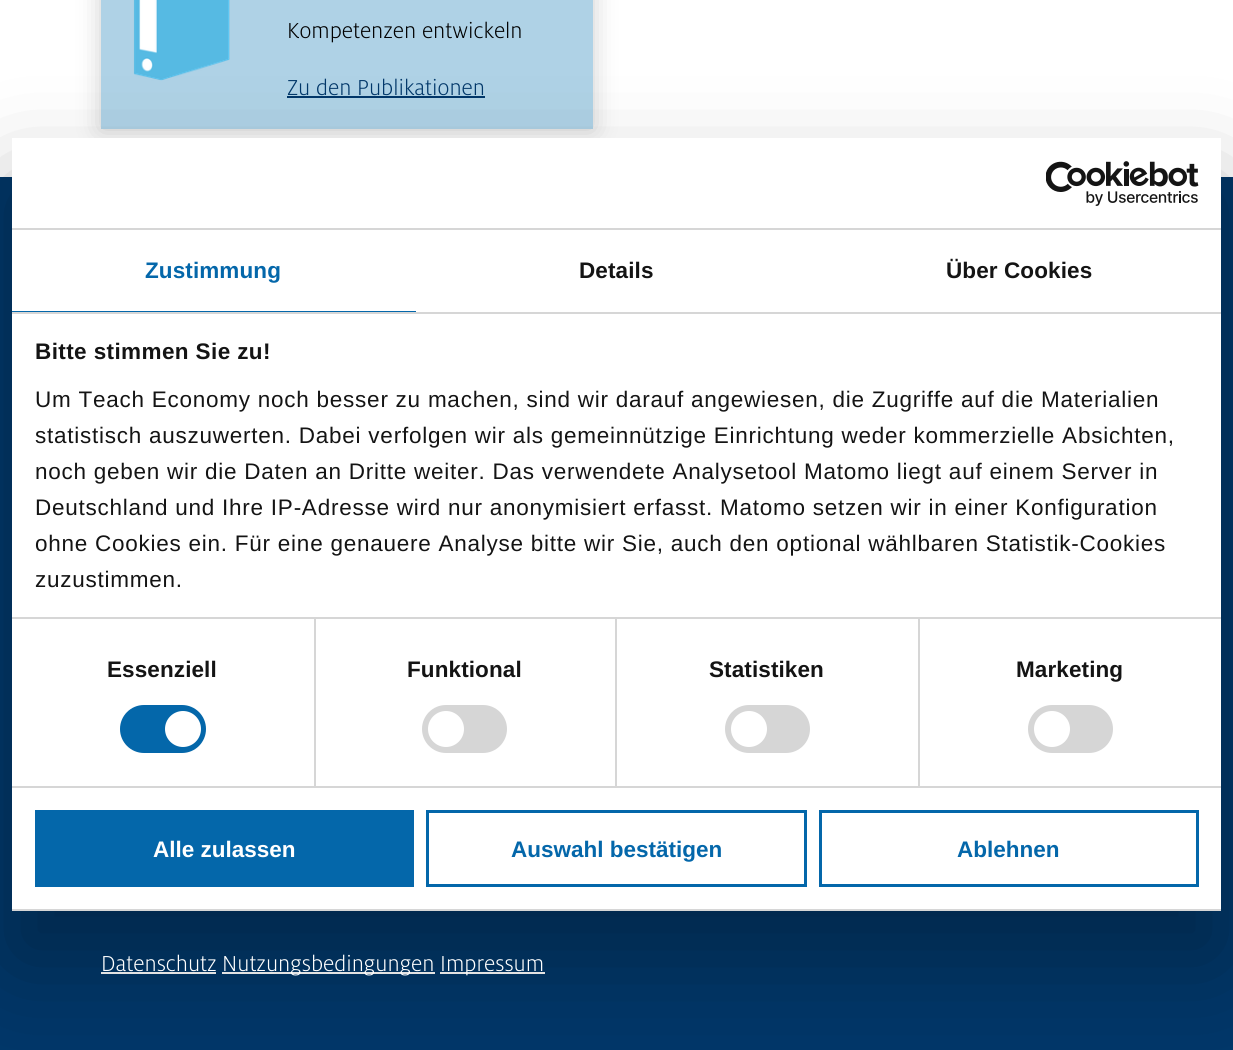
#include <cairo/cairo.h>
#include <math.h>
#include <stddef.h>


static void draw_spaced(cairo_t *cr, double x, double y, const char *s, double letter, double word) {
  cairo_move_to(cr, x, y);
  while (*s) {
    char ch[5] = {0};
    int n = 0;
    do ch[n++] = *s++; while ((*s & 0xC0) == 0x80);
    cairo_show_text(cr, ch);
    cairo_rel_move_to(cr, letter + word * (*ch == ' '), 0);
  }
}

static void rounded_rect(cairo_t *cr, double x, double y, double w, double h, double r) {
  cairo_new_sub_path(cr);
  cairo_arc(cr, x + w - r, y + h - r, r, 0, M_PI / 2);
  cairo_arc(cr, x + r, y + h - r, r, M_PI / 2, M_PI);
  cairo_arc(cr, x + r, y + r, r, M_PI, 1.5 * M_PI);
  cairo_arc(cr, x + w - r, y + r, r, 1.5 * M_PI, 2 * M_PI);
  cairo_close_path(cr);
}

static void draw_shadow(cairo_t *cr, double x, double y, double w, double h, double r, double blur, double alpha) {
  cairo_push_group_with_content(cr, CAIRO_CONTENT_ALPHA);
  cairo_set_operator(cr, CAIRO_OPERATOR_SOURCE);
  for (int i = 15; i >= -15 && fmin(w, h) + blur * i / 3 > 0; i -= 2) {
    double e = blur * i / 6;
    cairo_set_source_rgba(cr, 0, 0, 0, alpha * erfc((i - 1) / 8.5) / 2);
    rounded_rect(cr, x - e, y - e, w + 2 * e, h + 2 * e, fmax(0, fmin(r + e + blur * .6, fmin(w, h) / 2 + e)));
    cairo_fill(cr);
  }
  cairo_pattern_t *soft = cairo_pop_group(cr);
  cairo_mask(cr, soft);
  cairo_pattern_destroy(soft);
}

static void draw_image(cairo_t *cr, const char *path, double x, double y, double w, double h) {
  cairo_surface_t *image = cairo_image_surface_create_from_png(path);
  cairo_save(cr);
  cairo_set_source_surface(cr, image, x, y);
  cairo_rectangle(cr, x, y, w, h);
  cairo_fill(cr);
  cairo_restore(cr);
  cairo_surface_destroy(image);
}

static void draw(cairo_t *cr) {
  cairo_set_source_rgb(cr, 1, 1, 1);
  cairo_paint(cr);
  cairo_set_source_rgb(cr, 0, 0, 0);
  draw_shadow(cr, 101, -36, 492, 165, 0, 12, 0.2);
  cairo_set_source_rgb(cr, 175 / 255.0, 210 / 255.0, 230 / 255.0);
  cairo_rectangle(cr, 101, 0, 492, 129);
  cairo_fill(cr);
  draw_image(cr, "images/1.png", 133, 0, 97, 81);
  cairo_set_source_rgb(cr, 1 / 255.0, 55 / 255.0, 105 / 255.0);
  cairo_rectangle(cr, 287, 96, 198, 2);
  cairo_fill(cr);
  cairo_rectangle(cr, 0, 177, 1233, 873);
  cairo_fill(cr);
  cairo_set_source_rgb(cr, 1, 1, 1);
  cairo_rectangle(cr, 101, 972, 115, 2);
  cairo_fill(cr);
  cairo_rectangle(cr, 222, 972, 213, 2);
  cairo_fill(cr);
  cairo_rectangle(cr, 440, 972, 105, 2);
  cairo_fill(cr);
  cairo_set_source_rgb(cr, 0, 0, 0);
  draw_shadow(cr, 12, 186, 1209, 773, 0, 51, 0.3);
  cairo_set_source_rgb(cr, 1, 1, 1);
  cairo_rectangle(cr, 12, 138, 1209, 771);
  cairo_fill(cr);
  cairo_set_source_rgb(cr, 214 / 255.0, 214 / 255.0, 214 / 255.0);
  cairo_rectangle(cr, 12, 228, 1209, 2);
  cairo_fill(cr);
  draw_image(cr, "images/2.png", 1046, 161, 153, 45);
  cairo_rectangle(cr, 12, 312, 1209, 2);
  cairo_fill(cr);
  cairo_set_source_rgb(cr, 4 / 255.0, 103 / 255.0, 170 / 255.0);
  cairo_rectangle(cr, 12, 311, 404, 1);
  cairo_fill(cr);
  cairo_set_source_rgb(cr, 214 / 255.0, 214 / 255.0, 214 / 255.0);
  cairo_rectangle(cr, 314, 618, 2, 168);
  cairo_fill(cr);
  cairo_rectangle(cr, 615, 618, 2, 168);
  cairo_fill(cr);
  cairo_rectangle(cr, 918, 618, 2, 168);
  cairo_fill(cr);
  cairo_rectangle(cr, 12, 617, 1209, 2);
  cairo_fill(cr);
  cairo_rectangle(cr, 12, 786, 1209, 2);
  cairo_fill(cr);
  cairo_set_source_rgb(cr, 4 / 255.0, 103 / 255.0, 170 / 255.0);
  rounded_rect(cr, 120, 705, 86, 48, 24);
  cairo_fill(cr);
  cairo_set_source_rgb(cr, 1, 1, 1);
  cairo_arc(cr, 183, 729, 18, 0, 2 * M_PI);
  cairo_fill(cr);
  cairo_set_source_rgb(cr, 214 / 255.0, 214 / 255.0, 214 / 255.0);
  rounded_rect(cr, 422, 705, 85, 48, 24);
  cairo_fill(cr);
  cairo_set_source_rgb(cr, 1, 1, 1);
  cairo_arc(cr, 446, 729, 18, 0, 2 * M_PI);
  cairo_fill(cr);
  cairo_set_source_rgb(cr, 214 / 255.0, 214 / 255.0, 214 / 255.0);
  rounded_rect(cr, 725, 705, 85, 48, 24);
  cairo_fill(cr);
  cairo_set_source_rgb(cr, 1, 1, 1);
  cairo_arc(cr, 749, 729, 18, 0, 2 * M_PI);
  cairo_fill(cr);
  cairo_set_source_rgb(cr, 214 / 255.0, 214 / 255.0, 214 / 255.0);
  rounded_rect(cr, 1028, 705, 85, 48, 24);
  cairo_fill(cr);
  cairo_set_source_rgb(cr, 1, 1, 1);
  cairo_arc(cr, 1052, 729, 18, 0, 2 * M_PI);
  cairo_fill(cr);
  cairo_set_source_rgb(cr, 214 / 255.0, 214 / 255.0, 214 / 255.0);
  cairo_rectangle(cr, 12, 909, 1209, 2);
  cairo_fill(cr);
  cairo_set_source_rgb(cr, 4 / 255.0, 103 / 255.0, 170 / 255.0);
  cairo_rectangle(cr, 35, 810, 379, 77);
  cairo_fill(cr);
  cairo_rectangle(cr, 427.5, 811.5, 378, 74);
  cairo_set_line_width(cr, 3);
  cairo_stroke(cr);
  cairo_rectangle(cr, 820.5, 811.5, 377, 74);
  cairo_stroke(cr);
  cairo_select_font_face(cr, "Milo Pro", CAIRO_FONT_SLANT_NORMAL, CAIRO_FONT_WEIGHT_NORMAL);
  cairo_set_font_size(cr, 24);
  cairo_set_source_rgb(cr, 0, 0, 0);
  cairo_move_to(cr, 287, 38);
  cairo_show_text(cr, "Kompetenzen entwickeln");
  cairo_set_source_rgb(cr, 1 / 255.0, 55 / 255.0, 105 / 255.0);
  cairo_move_to(cr, 287, 95);
  cairo_show_text(cr, "Zu den Publikationen");
  cairo_select_font_face(cr, "Liberation Sans", CAIRO_FONT_SLANT_NORMAL, CAIRO_FONT_WEIGHT_BOLD);
  cairo_set_font_size(cr, 22.5);
  cairo_set_source_rgb(cr, 4 / 255.0, 103 / 255.0, 170 / 255.0);
  draw_spaced(cr, 145, 278, "Zustimmung", 0.1, 0);
  cairo_set_source_rgb(cr, 20 / 255.0, 20 / 255.0, 20 / 255.0);
  draw_spaced(cr, 579, 278, "Details", 0.1, 0);
  draw_spaced(cr, 946, 278, "Über Cookies", 0.1, 0);
  draw_spaced(cr, 35, 359, "Bitte stimmen Sie zu!", 0.4, 0);
  cairo_select_font_face(cr, "Liberation Sans", CAIRO_FONT_SLANT_NORMAL, CAIRO_FONT_WEIGHT_NORMAL);
  draw_spaced(cr, 35, 407, "Um Teach Economy noch besser zu machen, sind wir darauf angewiesen, die Zugriffe auf die Materialien", 0.75, 0);
  draw_spaced(cr, 35, 443, "statistisch auszuwerten. Dabei verfolgen wir als gemeinnützige Einrichtung weder kommerzielle Absichten,", 0.75, 0);
  draw_spaced(cr, 35, 479, "noch geben wir die Daten an Dritte weiter. Das verwendete Analysetool Matomo liegt auf einem Server in", 0.75, 0);
  draw_spaced(cr, 35, 515, "Deutschland und Ihre IP-Adresse wird nur anonymisiert erfasst. Matomo setzen wir in einer Konfiguration", 0.75, 0);
  draw_spaced(cr, 35, 551, "ohne Cookies ein. Für eine genauere Analyse bitte wir Sie, auch den optional wählbaren Statistik-Cookies", 0.75, 0);
  draw_spaced(cr, 35, 587, "zuzustimmen.", 0.75, 0);
  cairo_select_font_face(cr, "Liberation Sans", CAIRO_FONT_SLANT_NORMAL, CAIRO_FONT_WEIGHT_BOLD);
  draw_spaced(cr, 107, 677, "Essenziell", 0.1, 0);
  draw_spaced(cr, 407, 677, "Funktional", 0.1, 0);
  draw_spaced(cr, 709, 677, "Statistiken", 0.1, 0);
  draw_spaced(cr, 1016, 677, "Marketing", 0.1, 0);
  cairo_set_source_rgb(cr, 1, 1, 1);
  cairo_move_to(cr, 153, 857);
  cairo_show_text(cr, "Alle zulassen");
  cairo_set_source_rgb(cr, 4 / 255.0, 103 / 255.0, 170 / 255.0);
  cairo_move_to(cr, 511, 857);
  cairo_show_text(cr, "Auswahl bestätigen");
  cairo_move_to(cr, 957, 857);
  cairo_show_text(cr, "Ablehnen");
  cairo_select_font_face(cr, "Milo Pro", CAIRO_FONT_SLANT_NORMAL, CAIRO_FONT_WEIGHT_NORMAL);
  cairo_set_font_size(cr, 24);
  cairo_set_source_rgb(cr, 1, 1, 1);
  cairo_move_to(cr, 101, 971);
  cairo_show_text(cr, "Datenschutz");
  cairo_move_to(cr, 222, 971);
  cairo_show_text(cr, "Nutzungsbedingungen");
  cairo_move_to(cr, 440, 971);
  cairo_show_text(cr, "Impressum");
}

int main(void) {
  cairo_surface_t *surface = cairo_image_surface_create(CAIRO_FORMAT_RGB24, 1233, 1050);
  cairo_t *cr = cairo_create(surface);
  cairo_font_options_t *options = cairo_font_options_create();
  cairo_font_options_set_hint_metrics(options, CAIRO_HINT_METRICS_OFF);
  cairo_font_options_set_hint_style(options, CAIRO_HINT_STYLE_NONE);
  cairo_set_font_options(cr, options);
  cairo_set_miter_limit(cr, 4);
  draw(cr);
  cairo_surface_write_to_png(surface, "out.png");
  cairo_font_options_destroy(options);
  cairo_destroy(cr);
  cairo_surface_destroy(surface);
  return 0;
}
